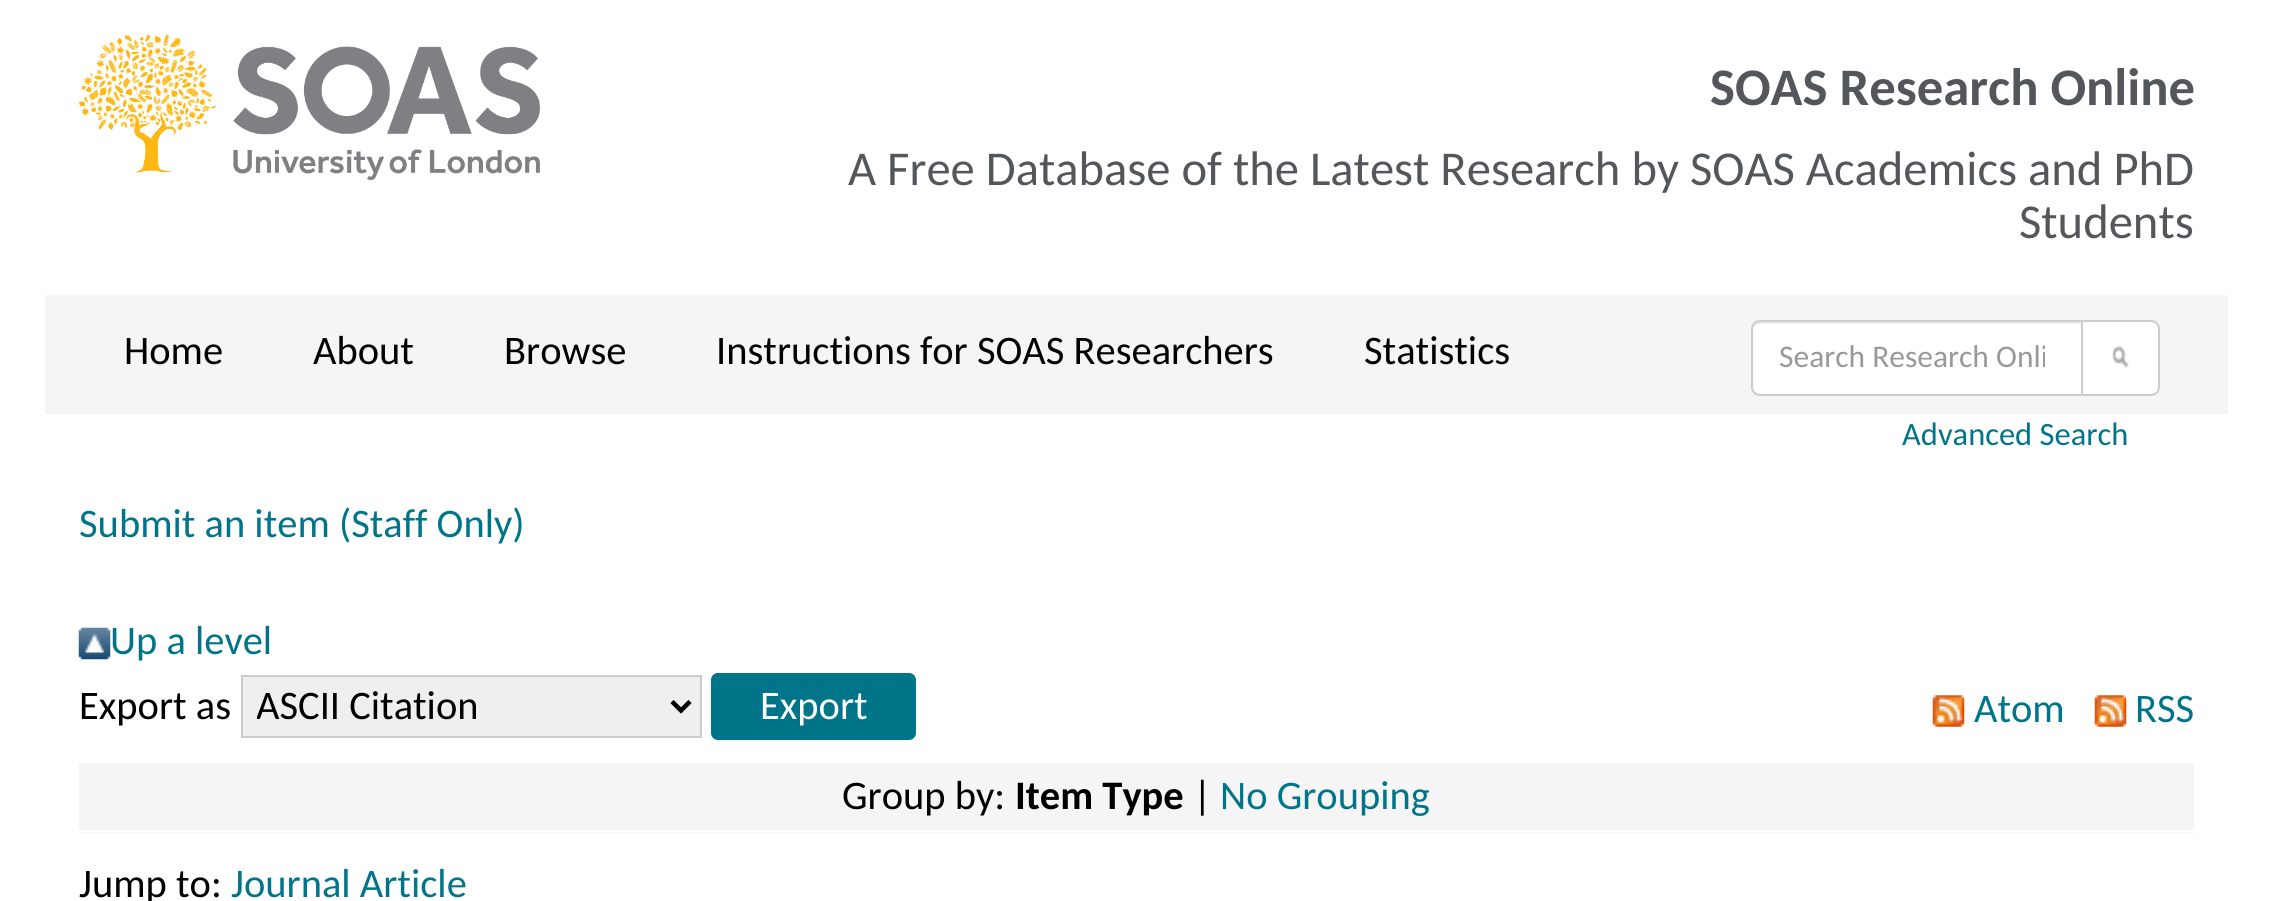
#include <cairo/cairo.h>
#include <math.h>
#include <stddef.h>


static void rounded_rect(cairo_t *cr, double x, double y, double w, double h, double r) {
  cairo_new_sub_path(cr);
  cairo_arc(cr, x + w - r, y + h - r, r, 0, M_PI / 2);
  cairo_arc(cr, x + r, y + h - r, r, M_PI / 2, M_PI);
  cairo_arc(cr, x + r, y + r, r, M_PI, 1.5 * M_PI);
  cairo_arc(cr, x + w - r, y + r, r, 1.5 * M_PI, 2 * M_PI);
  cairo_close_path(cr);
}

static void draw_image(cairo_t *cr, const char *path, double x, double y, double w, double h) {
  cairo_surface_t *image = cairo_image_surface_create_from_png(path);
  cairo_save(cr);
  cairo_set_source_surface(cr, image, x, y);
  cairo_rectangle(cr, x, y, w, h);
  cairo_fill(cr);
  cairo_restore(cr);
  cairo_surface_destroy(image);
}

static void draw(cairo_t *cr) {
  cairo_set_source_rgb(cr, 1, 1, 1);
  cairo_paint(cr);
  draw_image(cr, "images/1.png", 78, 33, 462, 147);
  cairo_set_source_rgb(cr, 245 / 255.0, 245 / 255.0, 245 / 255.0);
  cairo_rectangle(cr, 45, 295, 2183, 119);
  cairo_fill(cr);
  cairo_set_source_rgb(cr, 1, 1, 1);
  cairo_new_path(cr);
  cairo_move_to(cr, 1760, 320);
  cairo_line_to(cr, 2084, 320);
  cairo_line_to(cr, 2084, 396);
  cairo_line_to(cr, 1760, 396);
  cairo_curve_to(cr, 1755, 396, 1751, 392, 1751, 387);
  cairo_line_to(cr, 1751, 329);
  cairo_curve_to(cr, 1751, 324, 1755, 320, 1760, 320);
  cairo_close_path(cr);
  cairo_fill(cr);
  cairo_set_source_rgb(cr, 236 / 255.0, 236 / 255.0, 236 / 255.0);
  cairo_new_path(cr);
  cairo_move_to(cr, 1760, 324);
  cairo_line_to(cr, 2081, 324);
  cairo_line_to(cr, 2081, 322);
  cairo_line_to(cr, 1759, 322);
  cairo_curve_to(cr, 1754, 323, 1753, 327, 1753, 331);
  cairo_curve_to(cr, 1753, 327, 1756, 324, 1760, 324);
  cairo_close_path(cr);
  cairo_fill(cr);
  cairo_new_path(cr);
  cairo_move_to(cr, 1760, 321);
  cairo_line_to(cr, 2083, 321);
  cairo_line_to(cr, 2083, 395);
  cairo_line_to(cr, 1760, 395);
  cairo_curve_to(cr, 1755.5, 395, 1752, 391.5, 1752, 387);
  cairo_line_to(cr, 1752, 329);
  cairo_curve_to(cr, 1752, 324.5, 1755.5, 321, 1760, 321);
  cairo_close_path(cr);
  cairo_set_source_rgb(cr, 204 / 255.0, 204 / 255.0, 204 / 255.0);
  cairo_stroke(cr);
  cairo_set_source_rgb(cr, 1, 1, 1);
  cairo_new_path(cr);
  cairo_move_to(cr, 2082, 321);
  cairo_line_to(cr, 2151, 321);
  cairo_curve_to(cr, 2155.5, 321, 2159, 324.5, 2159, 329);
  cairo_line_to(cr, 2159, 387);
  cairo_curve_to(cr, 2159, 391.5, 2155.5, 395, 2151, 395);
  cairo_line_to(cr, 2082, 395);
  cairo_close_path(cr);
  cairo_fill_preserve(cr);
  cairo_set_source_rgb(cr, 204 / 255.0, 204 / 255.0, 204 / 255.0);
  cairo_stroke(cr);
  draw_image(cr, "images/2.png", 2112, 345, 17, 23);
  draw_image(cr, "images/3.png", 78, 627, 33, 33);
  cairo_set_source_rgb(cr, 239 / 255.0, 239 / 255.0, 239 / 255.0);
  cairo_rectangle(cr, 242, 676, 459, 61);
  cairo_fill_preserve(cr);
  cairo_set_source_rgb(cr, 204 / 255.0, 204 / 255.0, 204 / 255.0);
  cairo_stroke(cr);
  cairo_new_path(cr);
  cairo_move_to(cr, 672, 701.5);
  cairo_line_to(cr, 681, 710.5);
  cairo_line_to(cr, 690, 701.5);
  cairo_set_source_rgb(cr, 0, 0, 0);
  cairo_set_line_width(cr, 4.5);
  cairo_stroke(cr);
  cairo_set_source_rgb(cr, 0, 117 / 255.0, 138 / 255.0);
  rounded_rect(cr, 713.5, 675.5, 200, 62, 4.5);
  cairo_fill_preserve(cr);
  cairo_set_line_width(cr, 5);
  cairo_stroke(cr);
  draw_image(cr, "images/4.png", 1932, 695, 33, 32);
  draw_image(cr, "images/4.png", 2094, 695, 33, 32);
  cairo_set_source_rgb(cr, 245 / 255.0, 245 / 255.0, 245 / 255.0);
  cairo_rectangle(cr, 79, 763, 2115, 70);
  cairo_fill(cr);
  cairo_set_source_rgb(cr, 1, 1, 1);
  cairo_rectangle(cr, 79, 830, 2115, 2);
  cairo_fill(cr);
  cairo_select_font_face(cr, "Carlito", CAIRO_FONT_SLANT_NORMAL, CAIRO_FONT_WEIGHT_BOLD);
  cairo_set_font_size(cr, 52.75);
  cairo_set_source_rgb(cr, 83 / 255.0, 86 / 255.0, 90 / 255.0);
  cairo_move_to(cr, 1710, 105);
  cairo_show_text(cr, "SOAS Research Online");
  cairo_select_font_face(cr, "Carlito", CAIRO_FONT_SLANT_NORMAL, CAIRO_FONT_WEIGHT_NORMAL);
  cairo_set_font_size(cr, 48.6);
  cairo_move_to(cr, 848, 185);
  cairo_show_text(cr, "A Free Database of the Latest Research by SOAS Academics and PhD");
  cairo_move_to(cr, 2019, 238);
  cairo_show_text(cr, "Students");
  cairo_set_font_size(cr, 40.5);
  cairo_set_source_rgb(cr, 0, 0, 0);
  cairo_move_to(cr, 124, 364);
  cairo_show_text(cr, "Home");
  cairo_move_to(cr, 313, 364);
  cairo_show_text(cr, "About");
  cairo_move_to(cr, 504, 364);
  cairo_show_text(cr, "Browse");
  cairo_move_to(cr, 716, 364);
  cairo_show_text(cr, "Instructions for SOAS Researchers");
  cairo_move_to(cr, 1364, 364);
  cairo_show_text(cr, "Statistics");
  cairo_save(cr);
  cairo_rectangle(cr, 1780, 338, 265, 38);
  cairo_clip(cr);
  cairo_set_font_size(cr, 31.5);
  cairo_set_source_rgb(cr, 153 / 255.0, 153 / 255.0, 153 / 255.0);
  cairo_move_to(cr, 1779, 367);
  cairo_show_text(cr, "Search Research Onli");
  cairo_restore(cr);
  cairo_set_font_size(cr, 32.5);
  cairo_set_source_rgb(cr, 0, 117 / 255.0, 138 / 255.0);
  cairo_move_to(cr, 1902, 445);
  cairo_show_text(cr, "Advanced Search");
  cairo_set_font_size(cr, 40.5);
  cairo_move_to(cr, 79, 537);
  cairo_show_text(cr, "Submit an item (Staff Only)");
  cairo_move_to(cr, 110, 654);
  cairo_show_text(cr, "Up a level");
  cairo_set_source_rgb(cr, 0, 0, 0);
  cairo_move_to(cr, 79, 719);
  cairo_show_text(cr, "Export as");
  cairo_save(cr);
  cairo_rectangle(cr, 257, 680, 402, 54);
  cairo_clip(cr);
  cairo_move_to(cr, 256, 719);
  cairo_show_text(cr, "ASCII Citation");
  cairo_restore(cr);
  cairo_set_source_rgb(cr, 1, 1, 1);
  cairo_move_to(cr, 760, 719);
  cairo_show_text(cr, "Export");
  cairo_set_source_rgb(cr, 0, 117 / 255.0, 138 / 255.0);
  cairo_move_to(cr, 1974, 722);
  cairo_show_text(cr, "Atom");
  cairo_move_to(cr, 2135, 722);
  cairo_show_text(cr, "RSS");
  cairo_set_source_rgb(cr, 0, 0, 0);
  cairo_move_to(cr, 842, 809);
  cairo_show_text(cr, "Group by:");
  cairo_select_font_face(cr, "Carlito", CAIRO_FONT_SLANT_NORMAL, CAIRO_FONT_WEIGHT_BOLD);
  cairo_move_to(cr, 1015, 809);
  cairo_show_text(cr, "Item Type");
  cairo_select_font_face(cr, "Carlito", CAIRO_FONT_SLANT_NORMAL, CAIRO_FONT_WEIGHT_NORMAL);
  cairo_move_to(cr, 1193, 809);
  cairo_show_text(cr, "|");
  cairo_set_source_rgb(cr, 0, 117 / 255.0, 138 / 255.0);
  cairo_move_to(cr, 1220, 809);
  cairo_show_text(cr, "No Grouping");
  cairo_set_source_rgb(cr, 0, 0, 0);
  cairo_move_to(cr, 79, 897);
  cairo_show_text(cr, "Jump to:");
  cairo_set_source_rgb(cr, 0, 117 / 255.0, 138 / 255.0);
  cairo_move_to(cr, 231, 897);
  cairo_show_text(cr, "Journal Article");
}

int main(void) {
  cairo_surface_t *surface = cairo_image_surface_create(CAIRO_FORMAT_RGB24, 2271, 901);
  cairo_t *cr = cairo_create(surface);
  cairo_font_options_t *options = cairo_font_options_create();
  cairo_font_options_set_hint_metrics(options, CAIRO_HINT_METRICS_OFF);
  cairo_font_options_set_hint_style(options, CAIRO_HINT_STYLE_NONE);
  cairo_set_font_options(cr, options);
  cairo_set_miter_limit(cr, 4);
  draw(cr);
  cairo_surface_write_to_png(surface, "out.png");
  cairo_font_options_destroy(options);
  cairo_destroy(cr);
  cairo_surface_destroy(surface);
  return 0;
}
